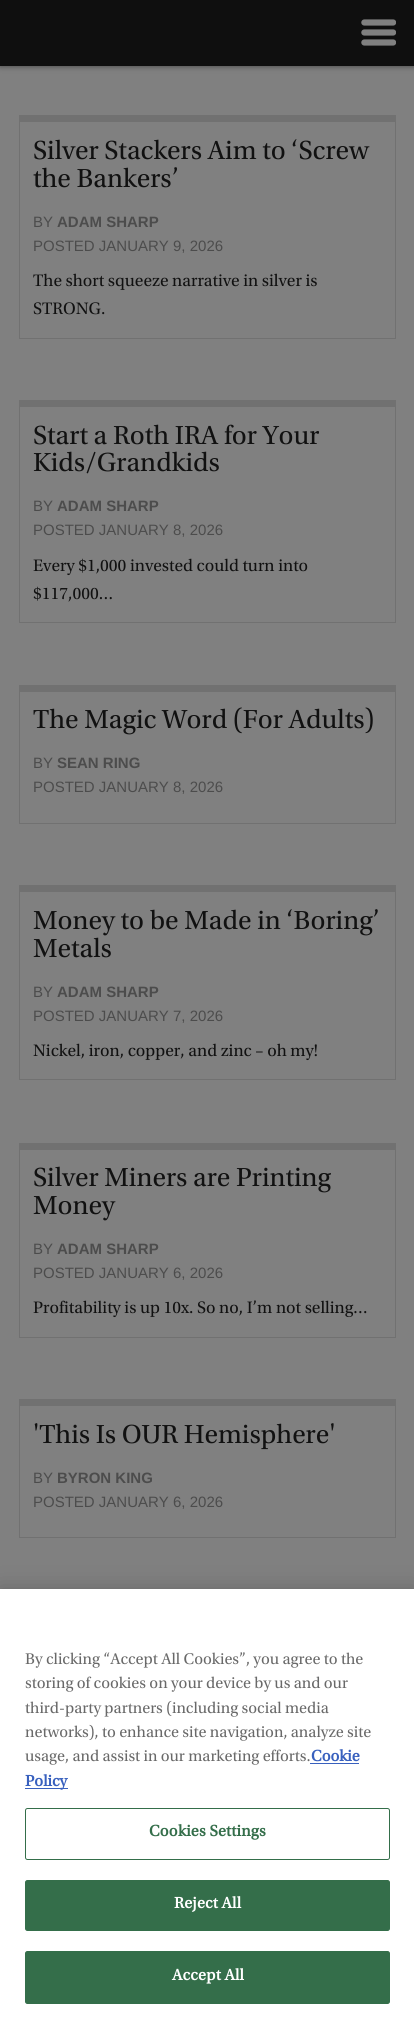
#include <cairo/cairo.h>
#include <math.h>
#include <stddef.h>


static void draw_spaced(cairo_t *cr, double x, double y, const char *s, double letter, double word) {
  cairo_move_to(cr, x, y);
  while (*s) {
    char ch[5] = {0};
    int n = 0;
    do ch[n++] = *s++; while ((*s & 0xC0) == 0x80);
    cairo_show_text(cr, ch);
    cairo_rel_move_to(cr, letter + word * (*ch == ' '), 0);
  }
}

static void rounded_rect(cairo_t *cr, double x, double y, double w, double h, double r) {
  cairo_new_sub_path(cr);
  cairo_arc(cr, x + w - r, y + h - r, r, 0, M_PI / 2);
  cairo_arc(cr, x + r, y + h - r, r, M_PI / 2, M_PI);
  cairo_arc(cr, x + r, y + r, r, M_PI, 1.5 * M_PI);
  cairo_arc(cr, x + w - r, y + r, r, 1.5 * M_PI, 2 * M_PI);
  cairo_close_path(cr);
}

static void draw_shadow(cairo_t *cr, double x, double y, double w, double h, double r, double blur, double alpha) {
  cairo_push_group_with_content(cr, CAIRO_CONTENT_ALPHA);
  cairo_set_operator(cr, CAIRO_OPERATOR_SOURCE);
  for (int i = 15; i >= -15 && fmin(w, h) + blur * i / 3 > 0; i -= 2) {
    double e = blur * i / 6;
    cairo_set_source_rgba(cr, 0, 0, 0, alpha * erfc((i - 1) / 8.5) / 2);
    rounded_rect(cr, x - e, y - e, w + 2 * e, h + 2 * e, fmax(0, fmin(r + e + blur * .6, fmin(w, h) / 2 + e)));
    cairo_fill(cr);
  }
  cairo_pattern_t *soft = cairo_pop_group(cr);
  cairo_mask(cr, soft);
  cairo_pattern_destroy(soft);
}

static void draw_image(cairo_t *cr, const char *path, double x, double y, double w, double h) {
  cairo_surface_t *image = cairo_image_surface_create_from_png(path);
  cairo_save(cr);
  cairo_set_source_surface(cr, image, x, y);
  cairo_rectangle(cr, x, y, w, h);
  cairo_fill(cr);
  cairo_restore(cr);
  cairo_surface_destroy(image);
}

static void draw(cairo_t *cr) {
  cairo_set_source_rgb(cr, 128 / 255.0, 128 / 255.0, 128 / 255.0);
  cairo_paint(cr);
  cairo_set_source_rgb(cr, 0, 0, 0);
  draw_shadow(cr, 0, 0, 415, 66, 0, 3, 0.5);
  cairo_set_source_rgb(cr, 15 / 255.0, 15 / 255.0, 15 / 255.0);
  cairo_rectangle(cr, 0, 0, 414, 66);
  cairo_fill(cr);
  draw_image(cr, "images/1.png", 361, 19, 35, 27);
  cairo_set_source_rgb(cr, 113 / 255.0, 113 / 255.0, 113 / 255.0);
  cairo_rectangle(cr, 19, 115, 377, 6);
  cairo_fill(cr);
  cairo_rectangle(cr, 19.5, 121.5, 376, 217);
  cairo_set_line_width(cr, 1);
  cairo_stroke(cr);
  cairo_rectangle(cr, 19, 400, 377, 6);
  cairo_fill(cr);
  cairo_rectangle(cr, 19.5, 406.5, 376, 216);
  cairo_stroke(cr);
  cairo_rectangle(cr, 19, 685, 377, 6);
  cairo_fill(cr);
  cairo_rectangle(cr, 19.5, 691.5, 376, 132);
  cairo_stroke(cr);
  cairo_rectangle(cr, 19, 885, 377, 6);
  cairo_fill(cr);
  cairo_rectangle(cr, 19.5, 891.5, 376, 188);
  cairo_stroke(cr);
  cairo_rectangle(cr, 19, 1143, 377, 6);
  cairo_fill(cr);
  cairo_rectangle(cr, 19.5, 1149.5, 376, 188);
  cairo_stroke(cr);
  cairo_rectangle(cr, 19, 1399, 377, 6);
  cairo_fill(cr);
  cairo_rectangle(cr, 19.5, 1405.5, 376, 132);
  cairo_stroke(cr);
  cairo_set_source_rgb(cr, 0, 0, 0);
  draw_shadow(cr, 0, 1589, 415, 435, 0, 11, 0.2);
  cairo_set_source_rgb(cr, 1, 1, 1);
  cairo_rectangle(cr, 0, 1589, 414, 434);
  cairo_fill(cr);
  cairo_set_source_rgb(cr, 56 / 255.0, 96 / 255.0, 190 / 255.0);
  cairo_rectangle(cr, 310, 1763, 49, 1);
  cairo_fill(cr);
  cairo_rectangle(cr, 25, 1788, 43, 1);
  cairo_fill(cr);
  rounded_rect(cr, 25.5, 1808.5, 364, 51, 2);
  cairo_set_source_rgb(cr, 52 / 255.0, 110 / 255.0, 74 / 255.0);
  cairo_stroke(cr);
  rounded_rect(cr, 25.5, 1880.5, 364, 50, 2);
  cairo_fill_preserve(cr);
  cairo_stroke(cr);
  rounded_rect(cr, 25.5, 1951.5, 364, 52, 2);
  cairo_fill_preserve(cr);
  cairo_stroke(cr);
  cairo_select_font_face(cr, "Utopia", CAIRO_FONT_SLANT_NORMAL, CAIRO_FONT_WEIGHT_NORMAL);
  cairo_set_font_size(cr, 27.5);
  cairo_set_source_rgb(cr, 17 / 255.0, 17 / 255.0, 17 / 255.0);
  cairo_move_to(cr, 33, 159);
  cairo_show_text(cr, "Silver Stackers Aim to ‘Screw");
  cairo_move_to(cr, 33, 187);
  cairo_show_text(cr, "the Bankers’");
  cairo_select_font_face(cr, "Liberation Sans", CAIRO_FONT_SLANT_NORMAL, CAIRO_FONT_WEIGHT_NORMAL);
  cairo_set_font_size(cr, 15);
  cairo_set_source_rgb(cr, 76 / 255.0, 76 / 255.0, 76 / 255.0);
  cairo_move_to(cr, 33, 227);
  cairo_show_text(cr, "BY");
  cairo_select_font_face(cr, "Liberation Sans", CAIRO_FONT_SLANT_NORMAL, CAIRO_FONT_WEIGHT_BOLD);
  cairo_move_to(cr, 57, 227);
  cairo_show_text(cr, "ADAM SHARP");
  cairo_select_font_face(cr, "Liberation Sans", CAIRO_FONT_SLANT_NORMAL, CAIRO_FONT_WEIGHT_NORMAL);
  cairo_move_to(cr, 33, 251);
  cairo_show_text(cr, "POSTED JANUARY 9, 2026");
  cairo_select_font_face(cr, "Utopia", CAIRO_FONT_SLANT_NORMAL, CAIRO_FONT_WEIGHT_NORMAL);
  cairo_set_font_size(cr, 17.5);
  cairo_set_source_rgb(cr, 17 / 255.0, 17 / 255.0, 17 / 255.0);
  cairo_move_to(cr, 33, 286);
  cairo_show_text(cr, "The short squeeze narrative in silver is");
  cairo_move_to(cr, 33, 314);
  cairo_show_text(cr, "STRONG.");
  cairo_set_font_size(cr, 27.5);
  cairo_move_to(cr, 33, 444);
  cairo_show_text(cr, "Start a Roth IRA for Your");
  cairo_move_to(cr, 33, 471);
  cairo_show_text(cr, "Kids/Grandkids");
  cairo_select_font_face(cr, "Liberation Sans", CAIRO_FONT_SLANT_NORMAL, CAIRO_FONT_WEIGHT_NORMAL);
  cairo_set_font_size(cr, 15);
  cairo_set_source_rgb(cr, 76 / 255.0, 76 / 255.0, 76 / 255.0);
  cairo_move_to(cr, 33, 511);
  cairo_show_text(cr, "BY");
  cairo_select_font_face(cr, "Liberation Sans", CAIRO_FONT_SLANT_NORMAL, CAIRO_FONT_WEIGHT_BOLD);
  cairo_move_to(cr, 57, 511);
  cairo_show_text(cr, "ADAM SHARP");
  cairo_select_font_face(cr, "Liberation Sans", CAIRO_FONT_SLANT_NORMAL, CAIRO_FONT_WEIGHT_NORMAL);
  cairo_move_to(cr, 33, 535);
  cairo_show_text(cr, "POSTED JANUARY 8, 2026");
  cairo_select_font_face(cr, "Utopia", CAIRO_FONT_SLANT_NORMAL, CAIRO_FONT_WEIGHT_NORMAL);
  cairo_set_font_size(cr, 17.5);
  cairo_set_source_rgb(cr, 17 / 255.0, 17 / 255.0, 17 / 255.0);
  cairo_move_to(cr, 33, 571);
  cairo_show_text(cr, "Every $1,000 invested could turn into");
  cairo_move_to(cr, 33, 599);
  cairo_show_text(cr, "$117,000…");
  cairo_set_font_size(cr, 27.5);
  cairo_move_to(cr, 33, 728);
  cairo_show_text(cr, "The Magic Word (For Adults)");
  cairo_select_font_face(cr, "Liberation Sans", CAIRO_FONT_SLANT_NORMAL, CAIRO_FONT_WEIGHT_NORMAL);
  cairo_set_font_size(cr, 15);
  cairo_set_source_rgb(cr, 76 / 255.0, 76 / 255.0, 76 / 255.0);
  cairo_move_to(cr, 33, 768);
  cairo_show_text(cr, "BY");
  cairo_select_font_face(cr, "Liberation Sans", CAIRO_FONT_SLANT_NORMAL, CAIRO_FONT_WEIGHT_BOLD);
  cairo_move_to(cr, 57, 768);
  cairo_show_text(cr, "SEAN RING");
  cairo_select_font_face(cr, "Liberation Sans", CAIRO_FONT_SLANT_NORMAL, CAIRO_FONT_WEIGHT_NORMAL);
  cairo_move_to(cr, 33, 792);
  cairo_show_text(cr, "POSTED JANUARY 8, 2026");
  cairo_select_font_face(cr, "Utopia", CAIRO_FONT_SLANT_NORMAL, CAIRO_FONT_WEIGHT_NORMAL);
  cairo_set_font_size(cr, 27.5);
  cairo_set_source_rgb(cr, 17 / 255.0, 17 / 255.0, 17 / 255.0);
  cairo_move_to(cr, 33, 929);
  cairo_show_text(cr, "Money to be Made in ‘Boring’");
  cairo_move_to(cr, 33, 957);
  cairo_show_text(cr, "Metals");
  cairo_select_font_face(cr, "Liberation Sans", CAIRO_FONT_SLANT_NORMAL, CAIRO_FONT_WEIGHT_NORMAL);
  cairo_set_font_size(cr, 15);
  cairo_set_source_rgb(cr, 76 / 255.0, 76 / 255.0, 76 / 255.0);
  cairo_move_to(cr, 33, 997);
  cairo_show_text(cr, "BY");
  cairo_select_font_face(cr, "Liberation Sans", CAIRO_FONT_SLANT_NORMAL, CAIRO_FONT_WEIGHT_BOLD);
  cairo_move_to(cr, 57, 997);
  cairo_show_text(cr, "ADAM SHARP");
  cairo_select_font_face(cr, "Liberation Sans", CAIRO_FONT_SLANT_NORMAL, CAIRO_FONT_WEIGHT_NORMAL);
  cairo_move_to(cr, 33, 1021);
  cairo_show_text(cr, "POSTED JANUARY 7, 2026");
  cairo_select_font_face(cr, "Utopia", CAIRO_FONT_SLANT_NORMAL, CAIRO_FONT_WEIGHT_NORMAL);
  cairo_set_font_size(cr, 17.5);
  cairo_set_source_rgb(cr, 17 / 255.0, 17 / 255.0, 17 / 255.0);
  cairo_move_to(cr, 33, 1056);
  cairo_show_text(cr, "Nickel, iron, copper, and zinc – oh my!");
  cairo_set_font_size(cr, 27.5);
  cairo_move_to(cr, 33, 1186);
  cairo_show_text(cr, "Silver Miners are Printing");
  cairo_move_to(cr, 33, 1214);
  cairo_show_text(cr, "Money");
  cairo_select_font_face(cr, "Liberation Sans", CAIRO_FONT_SLANT_NORMAL, CAIRO_FONT_WEIGHT_NORMAL);
  cairo_set_font_size(cr, 15);
  cairo_set_source_rgb(cr, 76 / 255.0, 76 / 255.0, 76 / 255.0);
  cairo_move_to(cr, 33, 1254);
  cairo_show_text(cr, "BY");
  cairo_select_font_face(cr, "Liberation Sans", CAIRO_FONT_SLANT_NORMAL, CAIRO_FONT_WEIGHT_BOLD);
  cairo_move_to(cr, 57, 1254);
  cairo_show_text(cr, "ADAM SHARP");
  cairo_select_font_face(cr, "Liberation Sans", CAIRO_FONT_SLANT_NORMAL, CAIRO_FONT_WEIGHT_NORMAL);
  cairo_move_to(cr, 33, 1278);
  cairo_show_text(cr, "POSTED JANUARY 6, 2026");
  cairo_select_font_face(cr, "Utopia", CAIRO_FONT_SLANT_NORMAL, CAIRO_FONT_WEIGHT_NORMAL);
  cairo_set_font_size(cr, 17.5);
  cairo_set_source_rgb(cr, 17 / 255.0, 17 / 255.0, 17 / 255.0);
  cairo_move_to(cr, 33, 1313);
  cairo_show_text(cr, "Profitability is up 10x. So no, I’m not selling…");
  cairo_set_font_size(cr, 27.5);
  cairo_move_to(cr, 33, 1443);
  cairo_show_text(cr, "'This Is OUR Hemisphere'");
  cairo_select_font_face(cr, "Liberation Sans", CAIRO_FONT_SLANT_NORMAL, CAIRO_FONT_WEIGHT_NORMAL);
  cairo_set_font_size(cr, 15);
  cairo_set_source_rgb(cr, 76 / 255.0, 76 / 255.0, 76 / 255.0);
  cairo_move_to(cr, 33, 1483);
  cairo_show_text(cr, "BY");
  cairo_select_font_face(cr, "Liberation Sans", CAIRO_FONT_SLANT_NORMAL, CAIRO_FONT_WEIGHT_BOLD);
  cairo_move_to(cr, 57, 1483);
  cairo_show_text(cr, "BYRON KING");
  cairo_select_font_face(cr, "Liberation Sans", CAIRO_FONT_SLANT_NORMAL, CAIRO_FONT_WEIGHT_NORMAL);
  cairo_move_to(cr, 33, 1507);
  cairo_show_text(cr, "POSTED JANUARY 6, 2026");
  cairo_select_font_face(cr, "Utopia", CAIRO_FONT_SLANT_NORMAL, CAIRO_FONT_WEIGHT_NORMAL);
  cairo_set_font_size(cr, 16.25);
  cairo_set_source_rgb(cr, 105 / 255.0, 105 / 255.0, 105 / 255.0);
  cairo_move_to(cr, 25, 1664);
  cairo_show_text(cr, "By clicking “Accept All Cookies”, you agree to the");
  cairo_move_to(cr, 25, 1688);
  cairo_show_text(cr, "storing of cookies on your device by us and our");
  cairo_move_to(cr, 25, 1713);
  cairo_show_text(cr, "third-party partners (including social media");
  cairo_move_to(cr, 25, 1737);
  cairo_show_text(cr, "networks), to enhance site navigation, analyze site");
  cairo_move_to(cr, 25, 1761);
  cairo_show_text(cr, "usage, and assist in our marketing efforts.");
  cairo_select_font_face(cr, "Utopia", CAIRO_FONT_SLANT_NORMAL, CAIRO_FONT_WEIGHT_BOLD);
  cairo_set_source_rgb(cr, 56 / 255.0, 96 / 255.0, 190 / 255.0);
  cairo_move_to(cr, 311, 1761);
  cairo_show_text(cr, "Cookie");
  cairo_move_to(cr, 25, 1786);
  cairo_show_text(cr, "Policy");
  cairo_set_source_rgb(cr, 52 / 255.0, 110 / 255.0, 74 / 255.0);
  draw_spaced(cr, 149, 1836, "Cookies Settings", 0.2, 0);
  cairo_set_source_rgb(cr, 1, 1, 1);
  draw_spaced(cr, 174, 1908, "Reject All", 0.2, 0);
  draw_spaced(cr, 172, 1980, "Accept All", 0.2, 0);
}

int main(void) {
  cairo_surface_t *surface = cairo_image_surface_create(CAIRO_FORMAT_RGB24, 414, 2023);
  cairo_t *cr = cairo_create(surface);
  cairo_font_options_t *options = cairo_font_options_create();
  cairo_font_options_set_hint_metrics(options, CAIRO_HINT_METRICS_OFF);
  cairo_font_options_set_hint_style(options, CAIRO_HINT_STYLE_NONE);
  cairo_set_font_options(cr, options);
  cairo_set_miter_limit(cr, 4);
  draw(cr);
  cairo_surface_write_to_png(surface, "out.png");
  cairo_font_options_destroy(options);
  cairo_destroy(cr);
  cairo_surface_destroy(surface);
  return 0;
}
